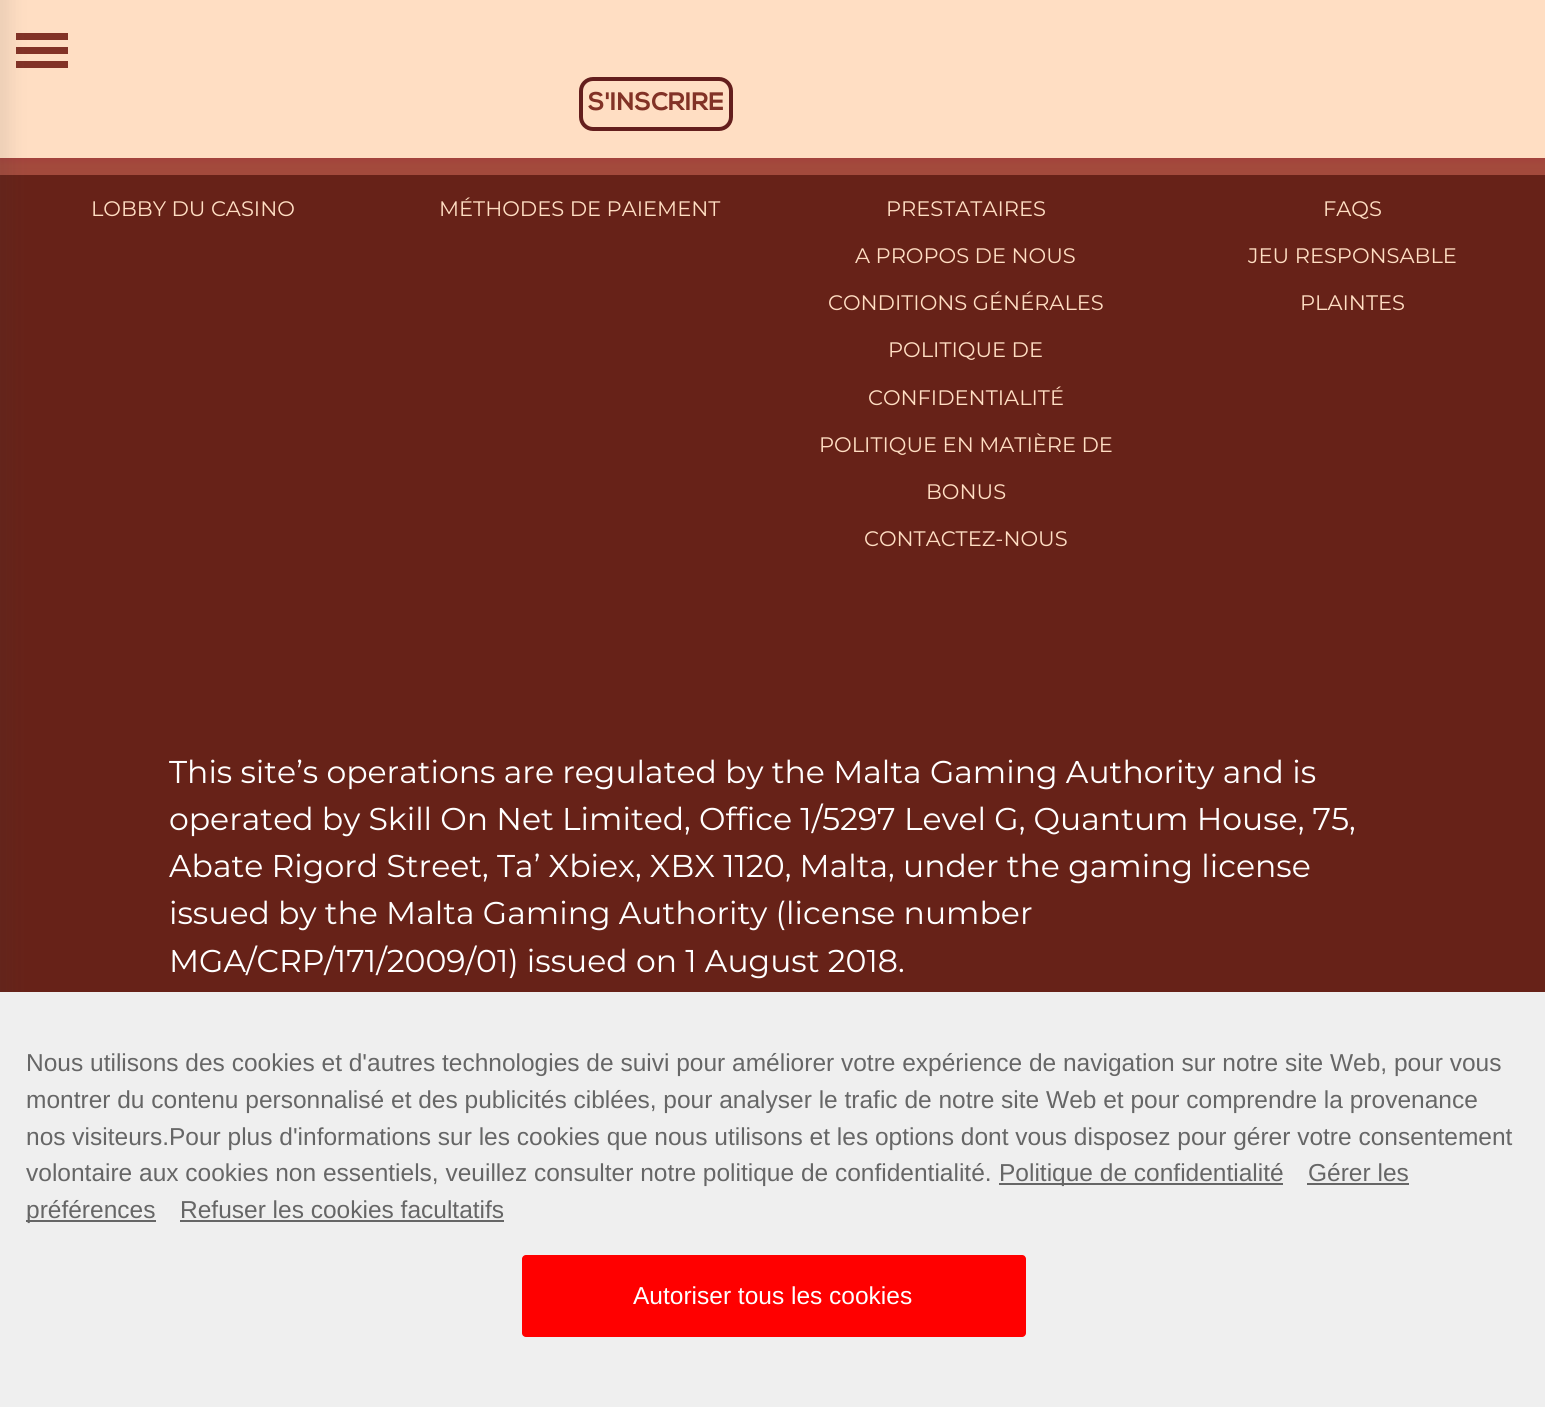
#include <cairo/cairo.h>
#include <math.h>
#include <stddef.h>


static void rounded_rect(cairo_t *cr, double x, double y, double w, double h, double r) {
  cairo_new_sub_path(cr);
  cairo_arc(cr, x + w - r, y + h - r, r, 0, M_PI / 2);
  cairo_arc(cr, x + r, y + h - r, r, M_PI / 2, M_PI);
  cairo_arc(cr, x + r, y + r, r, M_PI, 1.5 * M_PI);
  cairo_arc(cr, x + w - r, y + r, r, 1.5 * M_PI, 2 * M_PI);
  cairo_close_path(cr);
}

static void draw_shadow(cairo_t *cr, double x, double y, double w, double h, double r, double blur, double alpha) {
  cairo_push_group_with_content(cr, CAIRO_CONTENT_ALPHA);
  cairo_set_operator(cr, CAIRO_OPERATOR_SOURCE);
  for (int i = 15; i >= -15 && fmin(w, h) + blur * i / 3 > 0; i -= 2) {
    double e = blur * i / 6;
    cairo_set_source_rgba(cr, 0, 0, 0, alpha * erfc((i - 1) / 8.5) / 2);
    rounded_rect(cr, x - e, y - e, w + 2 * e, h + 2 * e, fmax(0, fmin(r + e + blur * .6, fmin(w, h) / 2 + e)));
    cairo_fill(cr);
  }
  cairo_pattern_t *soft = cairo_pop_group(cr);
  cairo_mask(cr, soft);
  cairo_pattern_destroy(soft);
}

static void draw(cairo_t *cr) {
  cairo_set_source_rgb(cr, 103 / 255.0, 34 / 255.0, 24 / 255.0);
  cairo_paint(cr);
  cairo_set_source_rgb(cr, 163 / 255.0, 74 / 255.0, 60 / 255.0);
  cairo_rectangle(cr, 0, 158, 1545, 17);
  cairo_fill(cr);
  cairo_set_source_rgb(cr, 163 / 255.0, 58 / 255.0, 60 / 255.0);
  draw_shadow(cr, 0, 0, 1545, 158, 0, 4.5, 1);
  cairo_set_source_rgb(cr, 1, 222 / 255.0, 195 / 255.0);
  cairo_rectangle(cr, 0, 0, 1545, 158);
  cairo_fill(cr);
  cairo_set_source_rgb(cr, 130 / 255.0, 50 / 255.0, 38 / 255.0);
  cairo_rectangle(cr, 16, 33, 52, 7);
  cairo_fill(cr);
  cairo_rectangle(cr, 16, 47, 52, 7);
  cairo_fill(cr);
  cairo_rectangle(cr, 16, 61, 52, 7);
  cairo_fill(cr);
  cairo_set_source_rgb(cr, 65 / 255.0, 65 / 255.0, 65 / 255.0);
  draw_shadow(cr, -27, -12, 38, 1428, 0, 9, 0.1);
  rounded_rect(cr, 581, 79, 150, 50, 12);
  cairo_set_source_rgb(cr, 100 / 255.0, 30 / 255.0, 29 / 255.0);
  cairo_set_line_width(cr, 4);
  cairo_stroke(cr);
  cairo_set_source_rgb(cr, 239 / 255.0, 239 / 255.0, 239 / 255.0);
  cairo_rectangle(cr, 0, 992, 1545, 415);
  cairo_fill(cr);
  cairo_set_source_rgb(cr, 102 / 255.0, 102 / 255.0, 102 / 255.0);
  cairo_rectangle(cr, 999, 1183, 284, 2);
  cairo_fill(cr);
  cairo_rectangle(cr, 1307, 1183, 102, 2);
  cairo_fill(cr);
  cairo_rectangle(cr, 26, 1220, 130, 2);
  cairo_fill(cr);
  cairo_rectangle(cr, 180, 1220, 324, 2);
  cairo_fill(cr);
  cairo_set_source_rgb(cr, 1, 0, 0);
  rounded_rect(cr, 522, 1255, 504, 82, 4);
  cairo_fill(cr);
  cairo_select_font_face(cr, "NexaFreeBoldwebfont", CAIRO_FONT_SLANT_NORMAL, CAIRO_FONT_WEIGHT_BOLD);
  cairo_set_font_size(cr, 25.25);
  cairo_set_source_rgb(cr, 130 / 255.0, 50 / 255.0, 38 / 255.0);
  cairo_move_to(cr, 588, 110);
  cairo_show_text(cr, "S'INSCRIRE");
  cairo_select_font_face(cr, "Montserrat", CAIRO_FONT_SLANT_NORMAL, CAIRO_FONT_WEIGHT_NORMAL);
  cairo_set_font_size(cr, 21);
  cairo_set_source_rgb(cr, 1, 222 / 255.0, 195 / 255.0);
  cairo_move_to(cr, 91, 216);
  cairo_show_text(cr, "LOBBY DU CASINO");
  cairo_move_to(cr, 439, 216);
  cairo_show_text(cr, "MÉTHODES DE PAIEMENT");
  cairo_move_to(cr, 886, 216);
  cairo_show_text(cr, "PRESTATAIRES");
  cairo_move_to(cr, 855, 263);
  cairo_show_text(cr, "A PROPOS DE NOUS");
  cairo_move_to(cr, 828, 310);
  cairo_show_text(cr, "CONDITIONS GÉNÉRALES");
  cairo_move_to(cr, 888, 357);
  cairo_show_text(cr, "POLITIQUE DE");
  cairo_move_to(cr, 868, 405);
  cairo_show_text(cr, "CONFIDENTIALITÉ");
  cairo_move_to(cr, 819, 452);
  cairo_show_text(cr, "POLITIQUE EN MATIÈRE DE");
  cairo_move_to(cr, 926, 499);
  cairo_show_text(cr, "BONUS");
  cairo_move_to(cr, 864, 546);
  cairo_show_text(cr, "CONTACTEZ-NOUS");
  cairo_move_to(cr, 1323, 216);
  cairo_show_text(cr, "FAQS");
  cairo_move_to(cr, 1248, 263);
  cairo_show_text(cr, "JEU RESPONSABLE");
  cairo_move_to(cr, 1300, 310);
  cairo_show_text(cr, "PLAINTES");
  cairo_set_font_size(cr, 31.5);
  cairo_set_source_rgb(cr, 1, 1, 1);
  cairo_move_to(cr, 169, 783);
  cairo_show_text(cr, "This site’s operations are regulated by the Malta Gaming Authority and is");
  cairo_move_to(cr, 169, 830);
  cairo_show_text(cr, "operated by Skill On Net Limited, Office 1/5297 Level G, Quantum House, 75,");
  cairo_move_to(cr, 169, 877);
  cairo_show_text(cr, "Abate Rigord Street, Ta’ Xbiex, XBX 1120, Malta, under the gaming license");
  cairo_move_to(cr, 169, 924);
  cairo_show_text(cr, "issued by the Malta Gaming Authority (license number");
  cairo_move_to(cr, 169, 972);
  cairo_show_text(cr, "MGA/CRP/171/2009/01) issued on 1 August 2018.");
  cairo_select_font_face(cr, "Liberation Sans", CAIRO_FONT_SLANT_NORMAL, CAIRO_FONT_WEIGHT_NORMAL);
  cairo_set_font_size(cr, 24.5);
  cairo_set_source_rgb(cr, 102 / 255.0, 102 / 255.0, 102 / 255.0);
  cairo_move_to(cr, 26, 1071);
  cairo_show_text(cr, "Nous utilisons des cookies et d'autres technologies de suivi pour améliorer votre expérience de navigation sur notre site Web, pour vous");
  cairo_move_to(cr, 26, 1108);
  cairo_show_text(cr, "montrer du contenu personnalisé et des publicités ciblées, pour analyser le trafic de notre site Web et pour comprendre la provenance");
  cairo_move_to(cr, 26, 1145);
  cairo_show_text(cr, "nos visiteurs.Pour plus d'informations sur les cookies que nous utilisons et les options dont vous disposez pour gérer votre consentement");
  cairo_move_to(cr, 26, 1181);
  cairo_show_text(cr, "volontaire aux cookies non essentiels, veuillez consulter notre politique de confidentialité.");
  cairo_move_to(cr, 999, 1181);
  cairo_show_text(cr, "Politique de confidentialité");
  cairo_move_to(cr, 1308, 1181);
  cairo_show_text(cr, "Gérer les");
  cairo_move_to(cr, 26, 1218);
  cairo_show_text(cr, "préférences");
  cairo_move_to(cr, 180, 1218);
  cairo_show_text(cr, "Refuser les cookies facultatifs");
  cairo_set_source_rgb(cr, 1, 1, 1);
  cairo_move_to(cr, 633, 1304);
  cairo_show_text(cr, "Autoriser tous les cookies");
}

int main(void) {
  cairo_surface_t *surface = cairo_image_surface_create(CAIRO_FORMAT_RGB24, 1545, 1407);
  cairo_t *cr = cairo_create(surface);
  cairo_font_options_t *options = cairo_font_options_create();
  cairo_font_options_set_hint_metrics(options, CAIRO_HINT_METRICS_OFF);
  cairo_font_options_set_hint_style(options, CAIRO_HINT_STYLE_NONE);
  cairo_set_font_options(cr, options);
  cairo_set_miter_limit(cr, 4);
  draw(cr);
  cairo_surface_write_to_png(surface, "out.png");
  cairo_font_options_destroy(options);
  cairo_destroy(cr);
  cairo_surface_destroy(surface);
  return 0;
}
